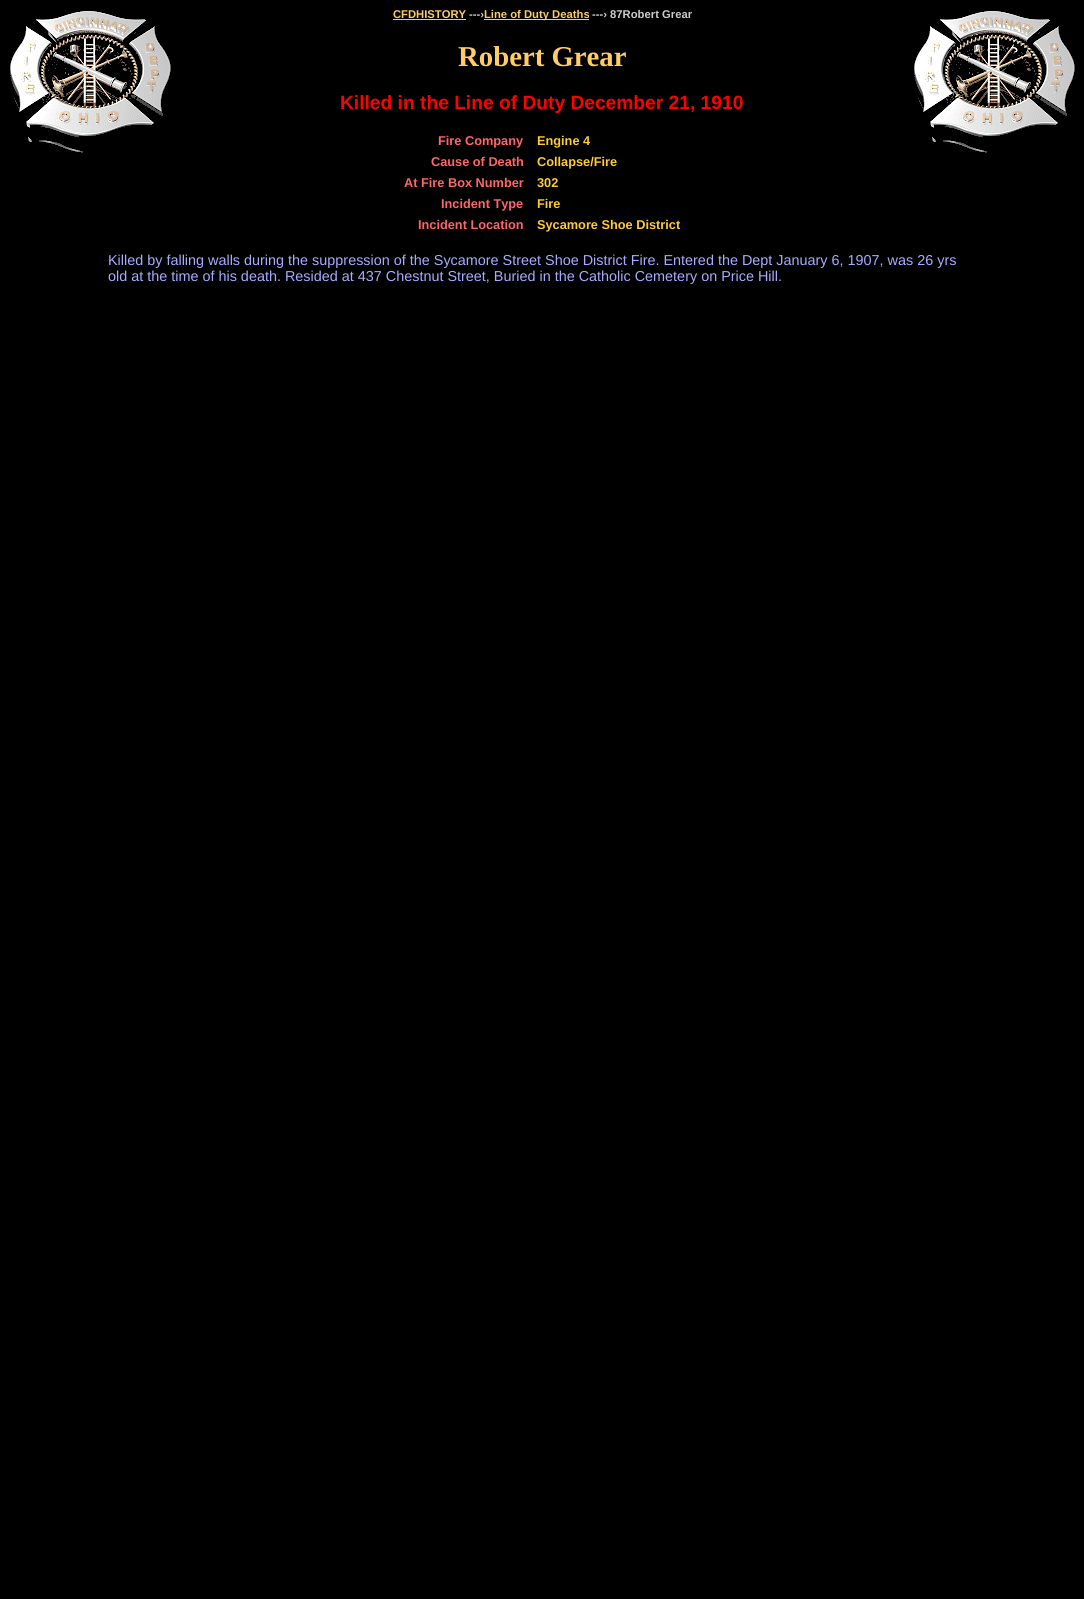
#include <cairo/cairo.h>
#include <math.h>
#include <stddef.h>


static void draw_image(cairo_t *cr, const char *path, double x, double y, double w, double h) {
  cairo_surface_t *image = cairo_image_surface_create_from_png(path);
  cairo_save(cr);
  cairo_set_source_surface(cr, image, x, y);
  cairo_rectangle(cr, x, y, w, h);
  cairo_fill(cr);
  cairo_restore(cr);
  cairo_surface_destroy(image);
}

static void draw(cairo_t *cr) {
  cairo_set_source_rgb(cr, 0, 0, 0);
  cairo_paint(cr);
  draw_image(cr, "images/1.png", 10, 11, 161, 142);
  cairo_set_source_rgb(cr, 1, 204 / 255.0, 102 / 255.0);
  cairo_rectangle(cr, 393, 19, 73, 1);
  cairo_fill(cr);
  cairo_rectangle(cr, 484, 19, 105, 1);
  cairo_fill(cr);
  draw_image(cr, "images/1.png", 914, 11, 161, 142);
  cairo_select_font_face(cr, "Liberation Sans", CAIRO_FONT_SLANT_NORMAL, CAIRO_FONT_WEIGHT_BOLD);
  cairo_set_font_size(cr, 11.25);
  cairo_move_to(cr, 393, 18);
  cairo_show_text(cr, "CFDHISTORY");
  cairo_set_source_rgb(cr, 204 / 255.0, 204 / 255.0, 204 / 255.0);
  cairo_move_to(cr, 469, 18);
  cairo_show_text(cr, "---›");
  cairo_set_source_rgb(cr, 1, 204 / 255.0, 102 / 255.0);
  cairo_move_to(cr, 484, 18);
  cairo_show_text(cr, "Line of Duty Deaths");
  cairo_set_source_rgb(cr, 204 / 255.0, 204 / 255.0, 204 / 255.0);
  cairo_move_to(cr, 592, 18);
  cairo_show_text(cr, "---› 87Robert Grear");
  cairo_select_font_face(cr, "Liberation Serif", CAIRO_FONT_SLANT_NORMAL, CAIRO_FONT_WEIGHT_BOLD);
  cairo_set_font_size(cr, 28.75);
  cairo_set_source_rgb(cr, 1, 204 / 255.0, 102 / 255.0);
  cairo_move_to(cr, 458, 66);
  cairo_show_text(cr, "Robert Grear");
  cairo_select_font_face(cr, "Liberation Sans", CAIRO_FONT_SLANT_NORMAL, CAIRO_FONT_WEIGHT_BOLD);
  cairo_set_font_size(cr, 19.2);
  cairo_set_source_rgb(cr, 1, 0, 0);
  cairo_move_to(cr, 340, 109);
  cairo_show_text(cr, "Killed in the Line of Duty December 21, 1910");
  cairo_set_font_size(cr, 12.75);
  cairo_set_source_rgb(cr, 1, 102 / 255.0, 102 / 255.0);
  cairo_move_to(cr, 438, 145);
  cairo_show_text(cr, "Fire Company");
  cairo_set_source_rgb(cr, 1, 204 / 255.0, 51 / 255.0);
  cairo_move_to(cr, 537, 145);
  cairo_show_text(cr, "Engine 4");
  cairo_set_source_rgb(cr, 1, 102 / 255.0, 102 / 255.0);
  cairo_move_to(cr, 431, 166);
  cairo_show_text(cr, "Cause of Death");
  cairo_set_source_rgb(cr, 1, 204 / 255.0, 51 / 255.0);
  cairo_move_to(cr, 537, 166);
  cairo_show_text(cr, "Collapse/Fire");
  cairo_set_source_rgb(cr, 1, 102 / 255.0, 102 / 255.0);
  cairo_move_to(cr, 404, 187);
  cairo_show_text(cr, "At Fire Box Number");
  cairo_set_source_rgb(cr, 1, 204 / 255.0, 51 / 255.0);
  cairo_move_to(cr, 537, 187);
  cairo_show_text(cr, "302");
  cairo_set_source_rgb(cr, 1, 102 / 255.0, 102 / 255.0);
  cairo_move_to(cr, 441, 208);
  cairo_show_text(cr, "Incident Type");
  cairo_set_source_rgb(cr, 1, 204 / 255.0, 51 / 255.0);
  cairo_move_to(cr, 537, 208);
  cairo_show_text(cr, "Fire");
  cairo_set_source_rgb(cr, 1, 102 / 255.0, 102 / 255.0);
  cairo_move_to(cr, 418, 229);
  cairo_show_text(cr, "Incident Location");
  cairo_set_source_rgb(cr, 1, 204 / 255.0, 51 / 255.0);
  cairo_move_to(cr, 537, 229);
  cairo_show_text(cr, "Sycamore Shoe District");
  cairo_select_font_face(cr, "Liberation Sans", CAIRO_FONT_SLANT_NORMAL, CAIRO_FONT_WEIGHT_NORMAL);
  cairo_set_font_size(cr, 14.4);
  cairo_set_source_rgb(cr, 170 / 255.0, 170 / 255.0, 1);
  cairo_move_to(cr, 108, 265);
  cairo_show_text(cr, "Killed by falling walls during the suppression of the Sycamore Street Shoe District Fire. Entered the Dept January 6, 1907, was 26 yrs");
  cairo_move_to(cr, 108, 281);
  cairo_show_text(cr, "old at the time of his death. Resided at 437 Chestnut Street, Buried in the Catholic Cemetery on Price Hill.");
}

int main(void) {
  cairo_surface_t *surface = cairo_image_surface_create(CAIRO_FORMAT_RGB24, 1084, 1599);
  cairo_t *cr = cairo_create(surface);
  cairo_font_options_t *options = cairo_font_options_create();
  cairo_font_options_set_hint_metrics(options, CAIRO_HINT_METRICS_OFF);
  cairo_font_options_set_hint_style(options, CAIRO_HINT_STYLE_NONE);
  cairo_set_font_options(cr, options);
  cairo_set_miter_limit(cr, 4);
  draw(cr);
  cairo_surface_write_to_png(surface, "out.png");
  cairo_font_options_destroy(options);
  cairo_destroy(cr);
  cairo_surface_destroy(surface);
  return 0;
}
